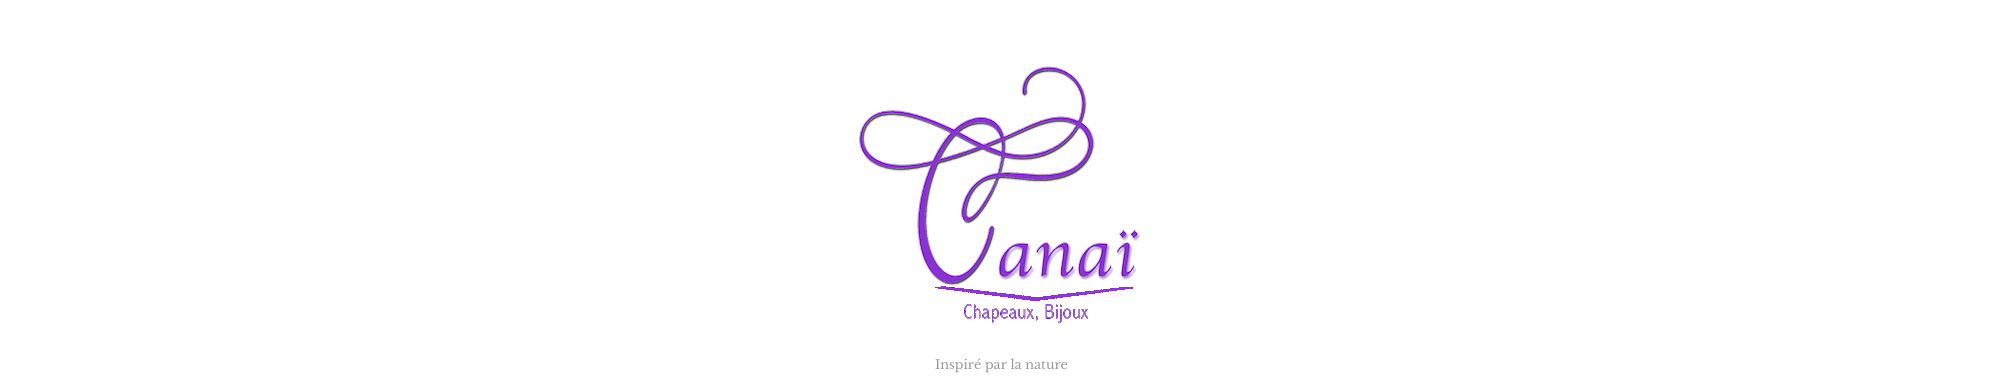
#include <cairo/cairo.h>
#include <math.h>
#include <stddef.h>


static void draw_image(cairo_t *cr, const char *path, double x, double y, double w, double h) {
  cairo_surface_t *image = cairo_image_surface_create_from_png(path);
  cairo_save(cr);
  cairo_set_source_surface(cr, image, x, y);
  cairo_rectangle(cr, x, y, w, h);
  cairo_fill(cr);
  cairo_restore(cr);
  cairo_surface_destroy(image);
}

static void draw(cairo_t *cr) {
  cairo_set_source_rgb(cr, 1, 1, 1);
  cairo_paint(cr);
  draw_image(cr, "images/1.png", 859, 66, 281, 258);
  cairo_select_font_face(cr, "Libre Baskerville", CAIRO_FONT_SLANT_NORMAL, CAIRO_FONT_WEIGHT_NORMAL);
  cairo_set_font_size(cr, 12.75);
  cairo_set_source_rgb(cr, 153 / 255.0, 153 / 255.0, 153 / 255.0);
  cairo_move_to(cr, 935, 369);
  cairo_show_text(cr, "Inspiré par la nature");
}

int main(void) {
  cairo_surface_t *surface = cairo_image_surface_create(CAIRO_FORMAT_RGB24, 2002, 384);
  cairo_t *cr = cairo_create(surface);
  cairo_font_options_t *options = cairo_font_options_create();
  cairo_font_options_set_hint_metrics(options, CAIRO_HINT_METRICS_OFF);
  cairo_font_options_set_hint_style(options, CAIRO_HINT_STYLE_NONE);
  cairo_set_font_options(cr, options);
  cairo_set_miter_limit(cr, 4);
  draw(cr);
  cairo_surface_write_to_png(surface, "out.png");
  cairo_font_options_destroy(options);
  cairo_destroy(cr);
  cairo_surface_destroy(surface);
  return 0;
}
